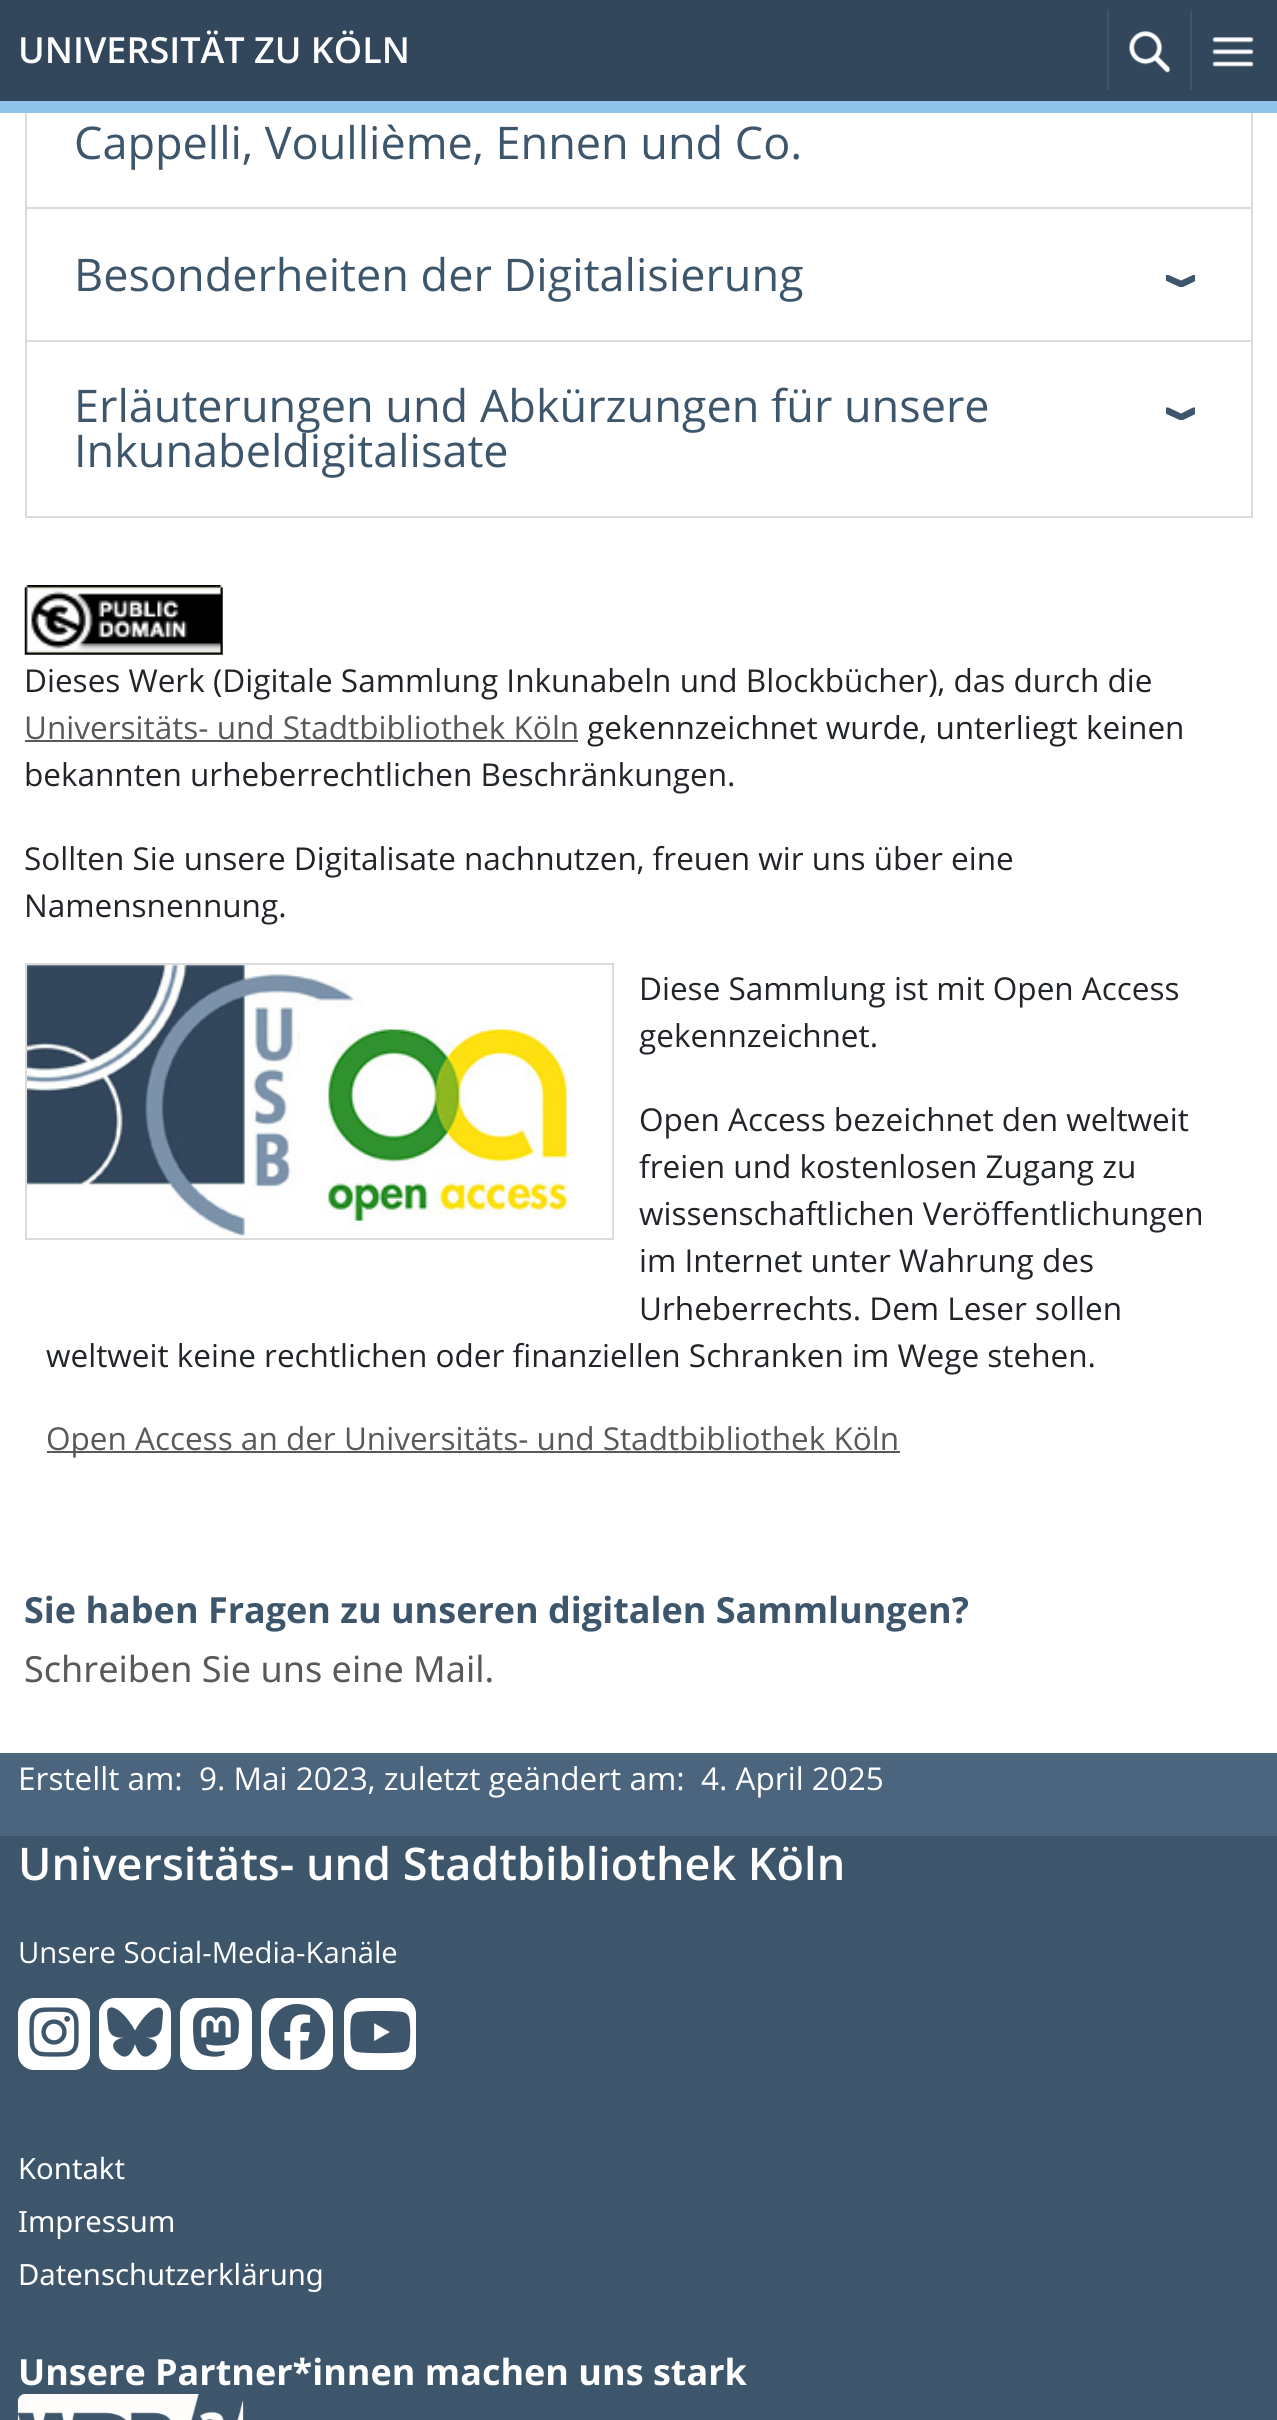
#include <cairo/cairo.h>
#include <math.h>
#include <stddef.h>


static void rounded_rect(cairo_t *cr, double x, double y, double w, double h, double r) {
  cairo_new_sub_path(cr);
  cairo_arc(cr, x + w - r, y + h - r, r, 0, M_PI / 2);
  cairo_arc(cr, x + r, y + h - r, r, M_PI / 2, M_PI);
  cairo_arc(cr, x + r, y + r, r, M_PI, 1.5 * M_PI);
  cairo_arc(cr, x + w - r, y + r, r, 1.5 * M_PI, 2 * M_PI);
  cairo_close_path(cr);
}

static void draw_image(cairo_t *cr, const char *path, double x, double y, double w, double h) {
  cairo_surface_t *image = cairo_image_surface_create_from_png(path);
  cairo_save(cr);
  cairo_set_source_surface(cr, image, x, y);
  cairo_rectangle(cr, x, y, w, h);
  cairo_fill(cr);
  cairo_restore(cr);
  cairo_surface_destroy(image);
}

static void draw(cairo_t *cr) {
  cairo_set_source_rgb(cr, 1, 1, 1);
  cairo_paint(cr);
  cairo_rectangle(cr, 26, 33, 1226, 175);
  cairo_set_source_rgb(cr, 219 / 255.0, 219 / 255.0, 219 / 255.0);
  cairo_stroke(cr);
  cairo_set_source_rgb(cr, 50 / 255.0, 71 / 255.0, 91 / 255.0);
  cairo_rectangle(cr, 0, 0, 1277, 101);
  cairo_fill(cr);
  cairo_set_source_rgb(cr, 144 / 255.0, 196 / 255.0, 235 / 255.0);
  cairo_rectangle(cr, 0, 101, 1277, 12);
  cairo_fill(cr);
  cairo_set_source_rgb(cr, 62 / 255.0, 86 / 255.0, 108 / 255.0);
  cairo_rectangle(cr, 1107, 11, 2, 79);
  cairo_fill(cr);
  draw_image(cr, "images/1.png", 1129, 31, 42, 42);
  cairo_rectangle(cr, 1190, 11, 2, 79);
  cairo_fill(cr);
  draw_image(cr, "images/2.png", 1212, 37, 42, 30);
  cairo_save(cr);
  cairo_rectangle(cr, 1166, 266, 29, 31);
  cairo_clip(cr);
  cairo_new_path(cr);
  cairo_move_to(cr, 1165.5, 280.5);
  cairo_line_to(cr, 1179.5, 287);
  cairo_line_to(cr, 1183, 287);
  cairo_line_to(cr, 1196.5, 280.5);
  cairo_line_to(cr, 1196.5, 275);
  cairo_line_to(cr, 1193, 275);
  cairo_line_to(cr, 1181, 280.5);
  cairo_line_to(cr, 1168.5, 275);
  cairo_line_to(cr, 1165.5, 275);
  cairo_close_path(cr);
  cairo_fill(cr);
  cairo_restore(cr);
  cairo_rectangle(cr, 26, 208, 1226, 133);
  cairo_set_source_rgb(cr, 219 / 255.0, 219 / 255.0, 219 / 255.0);
  cairo_stroke(cr);
  cairo_save(cr);
  cairo_rectangle(cr, 1166, 398, 29, 32);
  cairo_clip(cr);
  cairo_set_source_rgb(cr, 62 / 255.0, 86 / 255.0, 108 / 255.0);
  cairo_new_path(cr);
  cairo_move_to(cr, 1165.5, 413.5);
  cairo_line_to(cr, 1179.5, 420);
  cairo_line_to(cr, 1183, 420);
  cairo_line_to(cr, 1196.5, 413.5);
  cairo_line_to(cr, 1196.5, 407.5);
  cairo_line_to(cr, 1193, 407.5);
  cairo_line_to(cr, 1181, 413.5);
  cairo_line_to(cr, 1168.5, 407.5);
  cairo_line_to(cr, 1165.5, 407.5);
  cairo_close_path(cr);
  cairo_fill(cr);
  cairo_restore(cr);
  cairo_rectangle(cr, 26, 341, 1226, 176);
  cairo_stroke(cr);
  draw_image(cr, "images/3.png", 24, 585, 199, 70);
  cairo_set_source_rgb(cr, 88 / 255.0, 89 / 255.0, 91 / 255.0);
  cairo_rectangle(cr, 25, 740, 553, 2);
  cairo_fill(cr);
  cairo_rectangle(cr, 26, 964, 587, 275);
  cairo_set_source_rgb(cr, 219 / 255.0, 219 / 255.0, 219 / 255.0);
  cairo_stroke(cr);
  draw_image(cr, "images/4.png", 27, 965, 542, 271);
  cairo_set_source_rgb(cr, 88 / 255.0, 89 / 255.0, 91 / 255.0);
  cairo_rectangle(cr, 47, 1451, 853, 2);
  cairo_fill(cr);
  cairo_set_source_rgb(cr, 74 / 255.0, 101 / 255.0, 125 / 255.0);
  cairo_rectangle(cr, 0, 1753, 1277, 83);
  cairo_fill(cr);
  cairo_set_source_rgb(cr, 62 / 255.0, 86 / 255.0, 108 / 255.0);
  cairo_rectangle(cr, 0, 1836, 1277, 584);
  cairo_fill(cr);
  cairo_set_source_rgb(cr, 1, 1, 1);
  rounded_rect(cr, 18, 1998, 72, 72, 16);
  cairo_fill(cr);
  draw_image(cr, "images/5.png", 29, 2007, 50, 50);
  rounded_rect(cr, 99, 1998, 72, 72, 16);
  cairo_fill(cr);
  draw_image(cr, "images/6.png", 107, 2007, 56, 50);
  rounded_rect(cr, 180, 1998, 72, 72, 16);
  cairo_fill(cr);
  draw_image(cr, "images/7.png", 193, 2007, 46, 50);
  rounded_rect(cr, 261, 1998, 72, 72, 16);
  cairo_fill(cr);
  draw_image(cr, "images/8.png", 268, 2003, 58, 57);
  rounded_rect(cr, 344, 1998, 72, 72, 16);
  cairo_fill(cr);
  draw_image(cr, "images/9.png", 350, 2010, 61, 44);
  draw_image(cr, "images/10.png", 17, 2394, 227, 26);
  cairo_select_font_face(cr, "Open Sans SemiBold", CAIRO_FONT_SLANT_NORMAL, CAIRO_FONT_WEIGHT_NORMAL);
  cairo_set_font_size(cr, 36);
  cairo_move_to(cr, 18, 63);
  cairo_show_text(cr, "UNIVERSITÄT ZU KÖLN");
  cairo_select_font_face(cr, "Open Sans", CAIRO_FONT_SLANT_NORMAL, CAIRO_FONT_WEIGHT_NORMAL);
  cairo_set_font_size(cr, 45);
  cairo_set_source_rgb(cr, 62 / 255.0, 86 / 255.0, 108 / 255.0);
  cairo_move_to(cr, 74, 159);
  cairo_show_text(cr, "Cappelli, Voullième, Ennen und Co.");
  cairo_move_to(cr, 74, 291);
  cairo_show_text(cr, "Besonderheiten der Digitalisierung");
  cairo_move_to(cr, 74, 422);
  cairo_show_text(cr, "Erläuterungen und Abkürzungen für unsere");
  cairo_move_to(cr, 74, 467);
  cairo_show_text(cr, "Inkunabeldigitalisate");
  cairo_set_font_size(cr, 31.5);
  cairo_set_source_rgb(cr, 33 / 255.0, 37 / 255.0, 41 / 255.0);
  cairo_move_to(cr, 24, 692);
  cairo_show_text(cr, "Dieses Werk (Digitale Sammlung Inkunabeln und Blockbücher), das durch die");
  cairo_set_source_rgb(cr, 88 / 255.0, 89 / 255.0, 91 / 255.0);
  cairo_move_to(cr, 24, 739);
  cairo_show_text(cr, "Universitäts- und Stadtbibliothek Köln");
  cairo_set_source_rgb(cr, 33 / 255.0, 37 / 255.0, 41 / 255.0);
  cairo_move_to(cr, 587, 739);
  cairo_show_text(cr, "gekennzeichnet wurde, unterliegt keinen");
  cairo_move_to(cr, 24, 786);
  cairo_show_text(cr, "bekannten urheberrechtlichen Beschränkungen.");
  cairo_move_to(cr, 24, 870);
  cairo_show_text(cr, "Sollten Sie unsere Digitalisate nachnutzen, freuen wir uns über eine");
  cairo_move_to(cr, 24, 917);
  cairo_show_text(cr, "Namensnennung.");
  cairo_move_to(cr, 639, 1000);
  cairo_show_text(cr, "Diese Sammlung ist mit Open Access");
  cairo_move_to(cr, 639, 1047);
  cairo_show_text(cr, "gekennzeichnet.");
  cairo_move_to(cr, 639, 1131);
  cairo_show_text(cr, "Open Access bezeichnet den weltweit");
  cairo_move_to(cr, 639, 1178);
  cairo_show_text(cr, "freien und kostenlosen Zugang zu");
  cairo_move_to(cr, 639, 1225);
  cairo_show_text(cr, "wissenschaftlichen Veröffentlichungen");
  cairo_move_to(cr, 639, 1272);
  cairo_show_text(cr, "im Internet unter Wahrung des");
  cairo_move_to(cr, 639, 1320);
  cairo_show_text(cr, "Urheberrechts. Dem Leser sollen");
  cairo_move_to(cr, 46, 1367);
  cairo_show_text(cr, "weltweit keine rechtlichen oder finanziellen Schranken im Wege stehen.");
  cairo_set_source_rgb(cr, 88 / 255.0, 89 / 255.0, 91 / 255.0);
  cairo_move_to(cr, 46, 1450);
  cairo_show_text(cr, "Open Access an der Universitäts- und Stadtbibliothek Köln");
  cairo_select_font_face(cr, "Open Sans", CAIRO_FONT_SLANT_NORMAL, CAIRO_FONT_WEIGHT_BOLD);
  cairo_set_font_size(cr, 36);
  cairo_set_source_rgb(cr, 62 / 255.0, 86 / 255.0, 108 / 255.0);
  cairo_move_to(cr, 24, 1623);
  cairo_show_text(cr, "Sie haben Fragen zu unseren digitalen Sammlungen?");
  cairo_select_font_face(cr, "Noto Sans", CAIRO_FONT_SLANT_NORMAL, CAIRO_FONT_WEIGHT_NORMAL);
  cairo_set_source_rgb(cr, 88 / 255.0, 89 / 255.0, 91 / 255.0);
  cairo_move_to(cr, 24, 1682);
  cairo_show_text(cr, "Schreiben Sie uns eine Mail.");
  cairo_select_font_face(cr, "Open Sans", CAIRO_FONT_SLANT_NORMAL, CAIRO_FONT_WEIGHT_NORMAL);
  cairo_set_font_size(cr, 31.5);
  cairo_set_source_rgb(cr, 1, 1, 1);
  cairo_move_to(cr, 18, 1790);
  cairo_show_text(cr, "Erstellt am:  9. Mai 2023, zuletzt geändert am:  4. April 2025");
  cairo_select_font_face(cr, "Open Sans SemiBold", CAIRO_FONT_SLANT_NORMAL, CAIRO_FONT_WEIGHT_NORMAL);
  cairo_set_font_size(cr, 45);
  cairo_move_to(cr, 18, 1880);
  cairo_show_text(cr, "Universitäts- und Stadtbibliothek Köln");
  cairo_select_font_face(cr, "Open Sans", CAIRO_FONT_SLANT_NORMAL, CAIRO_FONT_WEIGHT_NORMAL);
  cairo_set_font_size(cr, 29.25);
  cairo_move_to(cr, 18, 1963);
  cairo_show_text(cr, "Unsere Social-Media-Kanäle");
  cairo_select_font_face(cr, "Noto Sans", CAIRO_FONT_SLANT_NORMAL, CAIRO_FONT_WEIGHT_NORMAL);
  cairo_move_to(cr, 18, 2179);
  cairo_show_text(cr, "Kontakt");
  cairo_move_to(cr, 18, 2232);
  cairo_show_text(cr, "Impressum");
  cairo_move_to(cr, 18, 2285);
  cairo_show_text(cr, "Datenschutzerklärung");
  cairo_select_font_face(cr, "Open Sans", CAIRO_FONT_SLANT_NORMAL, CAIRO_FONT_WEIGHT_BOLD);
  cairo_set_font_size(cr, 36);
  cairo_move_to(cr, 18, 2385);
  cairo_show_text(cr, "Unsere Partner*innen machen uns stark");
}

int main(void) {
  cairo_surface_t *surface = cairo_image_surface_create(CAIRO_FORMAT_RGB24, 1277, 2420);
  cairo_t *cr = cairo_create(surface);
  cairo_font_options_t *options = cairo_font_options_create();
  cairo_font_options_set_hint_metrics(options, CAIRO_HINT_METRICS_OFF);
  cairo_font_options_set_hint_style(options, CAIRO_HINT_STYLE_NONE);
  cairo_set_font_options(cr, options);
  cairo_set_miter_limit(cr, 4);
  draw(cr);
  cairo_surface_write_to_png(surface, "out.png");
  cairo_font_options_destroy(options);
  cairo_destroy(cr);
  cairo_surface_destroy(surface);
  return 0;
}
